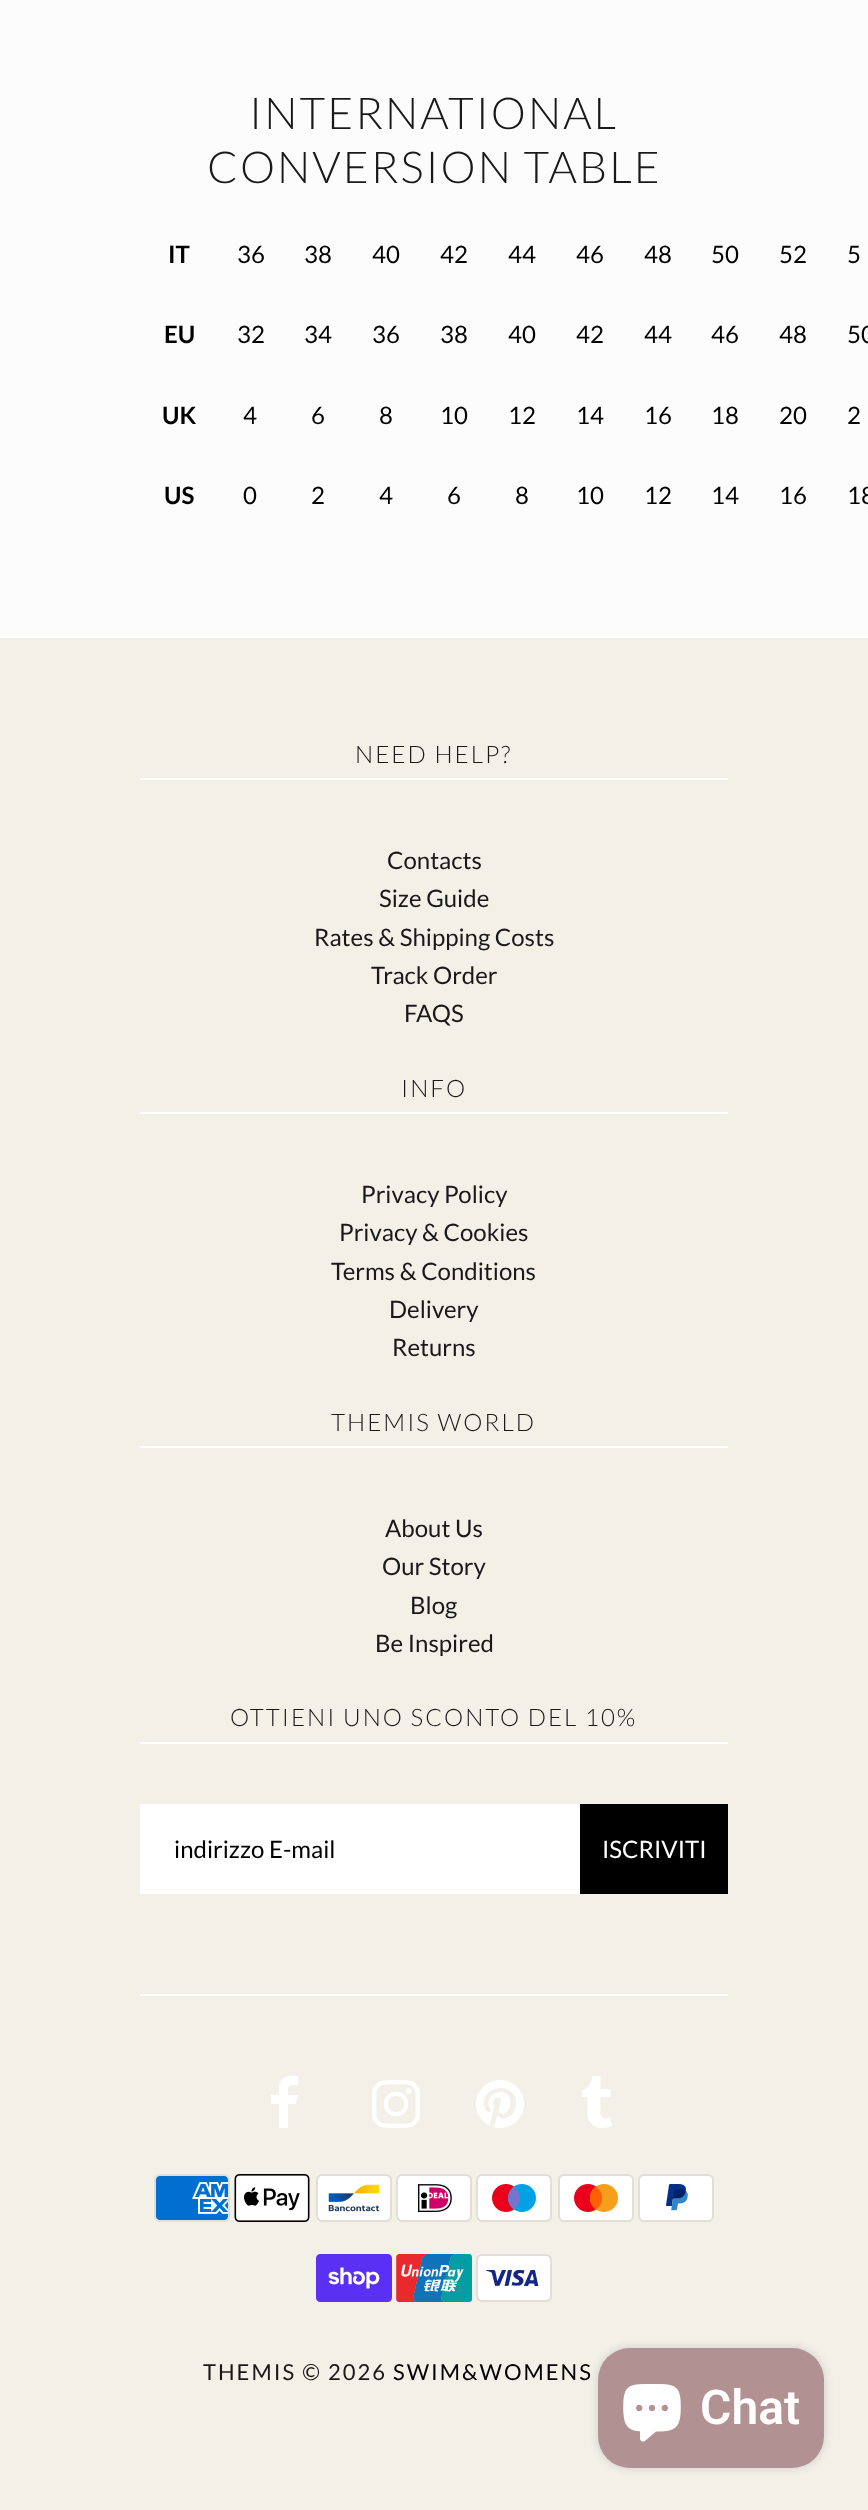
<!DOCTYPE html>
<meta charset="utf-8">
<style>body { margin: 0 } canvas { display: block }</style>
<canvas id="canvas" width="868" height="2510"></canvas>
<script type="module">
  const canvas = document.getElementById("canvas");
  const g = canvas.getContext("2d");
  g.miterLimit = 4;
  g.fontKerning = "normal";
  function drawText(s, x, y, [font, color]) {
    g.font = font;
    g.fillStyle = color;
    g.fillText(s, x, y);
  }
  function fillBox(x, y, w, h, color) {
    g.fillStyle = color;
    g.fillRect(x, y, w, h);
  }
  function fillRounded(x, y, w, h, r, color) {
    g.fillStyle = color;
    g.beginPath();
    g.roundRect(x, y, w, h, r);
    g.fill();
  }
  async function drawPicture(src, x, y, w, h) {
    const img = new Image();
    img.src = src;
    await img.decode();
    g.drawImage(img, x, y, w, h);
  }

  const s1 = ["300 44px Lato", "#191919"];
  const s2 = ["bold 24px Lato", "#000000"];
  const s3 = ["24px Lato", "#000000"];
  const s4 = ["300 24px Lato", "#191919"];
  const s5 = ["24px Lato", "#191919"];
  const s6 = ["24px Lato", "#FFFDFD"];
  const s7 = ["22px Lato", "#191919"];
  const s8 = ["22px Lato", "#000000"];
  const s9 = ["600 48px Roboto", "#FFFDFD"];

  fillBox(0, 0, 868, 2510, "#FCFCFC");
  g.letterSpacing = "2px";
  drawText("INTERNATIONAL", 249, 129, s1);
  drawText("CONVERSION TABLE", 207, 183, s1);
  g.letterSpacing = "0px";
  drawText("IT", 168, 263, s2);
  drawText("36", 237, 263, s3);
  drawText("38", 304, 263, s3);
  drawText("40", 372, 263, s3);
  drawText("42", 440, 263, s3);
  drawText("44", 508, 263, s3);
  drawText("46", 576, 263, s3);
  drawText("48", 644, 263, s3);
  drawText("50", 711, 263, s3);
  drawText("52", 779, 263, s3);
  drawText("5", 847, 263, s3);
  drawText("EU", 164, 343, s2);
  drawText("32", 237, 343, s3);
  drawText("34", 304, 343, s3);
  drawText("36", 372, 343, s3);
  drawText("38", 440, 343, s3);
  drawText("40", 508, 343, s3);
  drawText("42", 576, 343, s3);
  drawText("44", 644, 343, s3);
  drawText("46", 711, 343, s3);
  drawText("48", 779, 343, s3);
  drawText("50", 847, 343, s3);
  drawText("UK", 162, 424, s2);
  drawText("4", 243, 424, s3);
  drawText("6", 311, 424, s3);
  drawText("8", 379, 424, s3);
  drawText("10", 440, 424, s3);
  drawText("12", 508, 424, s3);
  drawText("14", 576, 424, s3);
  drawText("16", 644, 424, s3);
  drawText("18", 711, 424, s3);
  drawText("20", 779, 424, s3);
  drawText("2", 847, 424, s3);
  drawText("US", 164, 504, s2);
  drawText("0", 243, 504, s3);
  drawText("2", 311, 504, s3);
  drawText("4", 379, 504, s3);
  drawText("6", 447, 504, s3);
  drawText("8", 515, 504, s3);
  drawText("10", 576, 504, s3);
  drawText("12", 644, 504, s3);
  drawText("14", 711, 504, s3);
  drawText("16", 779, 504, s3);
  drawText("18", 847, 504, s3);
  fillBox(0, 638, 868, 1872, "#F3F0E8");
  fillBox(0, 636, 868, 2, "#FFFFFF");
  fillBox(140, 778, 588, 2, "#FFFFFF");
  g.letterSpacing = "2px";
  drawText("NEED HELP?", 355, 763, s4);
  g.letterSpacing = "0px";
  drawText("Contacts", 387, 869, s5);
  drawText("Size Guide", 379, 907, s5);
  drawText("Rates & Shipping Costs", 314, 946, s5);
  drawText("Track Order", 371, 984, s5);
  drawText("FAQS", 404, 1022, s5);
  fillBox(140, 1112, 588, 2, "#FFFFFF");
  g.letterSpacing = "2px";
  drawText("INFO", 401, 1097, s4);
  g.letterSpacing = "0px";
  drawText("Privacy Policy", 361, 1203, s5);
  drawText("Privacy & Cookies", 339, 1241, s5);
  drawText("Terms & Conditions", 331, 1280, s5);
  drawText("Delivery", 389, 1318, s5);
  drawText("Returns", 392, 1356, s5);
  fillBox(140, 1446, 588, 2, "#FFFFFF");
  g.letterSpacing = "2px";
  drawText("THEMIS WORLD", 331, 1431, s4);
  g.letterSpacing = "0px";
  drawText("About Us", 385, 1537, s5);
  drawText("Our Story", 382, 1575, s5);
  drawText("Blog", 410, 1614, s5);
  drawText("Be Inspired", 375, 1652, s5);
  fillBox(140, 1742, 588, 2, "#FFFFFF");
  g.letterSpacing = "2px";
  drawText("OTTIENI UNO SCONTO DEL 10%", 230, 1726, s4);
  fillBox(140, 1804, 440, 90, "#FFFFFF");
  g.letterSpacing = "0px";
  drawText("indirizzo E-mail", 174, 1858, s3);
  fillBox(580, 1804, 148, 90, "#000000");
  drawText("ISCRIVITI", 602, 1858, s6);
  fillBox(140, 1994, 588, 2, "#FFFFFF");
  g.beginPath();
  g.moveTo(298, 2076);
  g.lineTo(298, 2085);
  g.bezierCurveTo(288, 2085, 288, 2085, 288, 2095);
  g.lineTo(298, 2095);
  g.lineTo(296, 2104);
  g.lineTo(288, 2104);
  g.lineTo(288, 2128);
  g.lineTo(279, 2128);
  g.lineTo(279, 2104);
  g.lineTo(271, 2104);
  g.lineTo(271, 2095);
  g.lineTo(279, 2095);
  g.lineTo(279, 2085);
  g.bezierCurveTo(281, 2076, 290, 2075, 298, 2076);
  g.closePath();
  g.fill();
  await drawPicture("pic1.png", 372, 2080, 48, 48);
  await drawPicture("pic2.png", 476, 2080, 48, 48);
  await drawPicture("pic3.png", 582, 2076, 30, 52);
  await drawPicture("pic4.png", 154, 2174, 76, 48);
  await drawPicture("pic5.png", 234, 2174, 76, 48);
  await drawPicture("pic6.png", 316, 2174, 76, 48);
  await drawPicture("pic7.png", 396, 2174, 76, 48);
  await drawPicture("pic8.png", 476, 2174, 76, 48);
  await drawPicture("pic9.png", 558, 2174, 76, 48);
  await drawPicture("pic10.png", 638, 2174, 76, 48);
  await drawPicture("pic11.png", 316, 2254, 76, 48);
  await drawPicture("pic12.png", 396, 2254, 76, 48);
  await drawPicture("pic13.png", 476, 2254, 76, 48);
  g.letterSpacing = "2px";
  drawText("THEMIS © 2026", 203, 2380, s7);
  drawText("SWIM&WOMENS", 393, 2380, s8);
  g.fillStyle = "rgba(0, 0, 0, 0.15)";
  g.filter = "blur(5px)";
  g.beginPath();
  g.roundRect(598, 2348, 226, 120, 32);
  g.fill();
  g.filter = "none";
  fillRounded(598, 2348, 226, 120, 32, "#B19191");
  await drawPicture("pic14.png", 623, 2384, 58, 58);
  g.letterSpacing = "0px";
  drawText("Chat", 700, 2424, s9);
</script>
